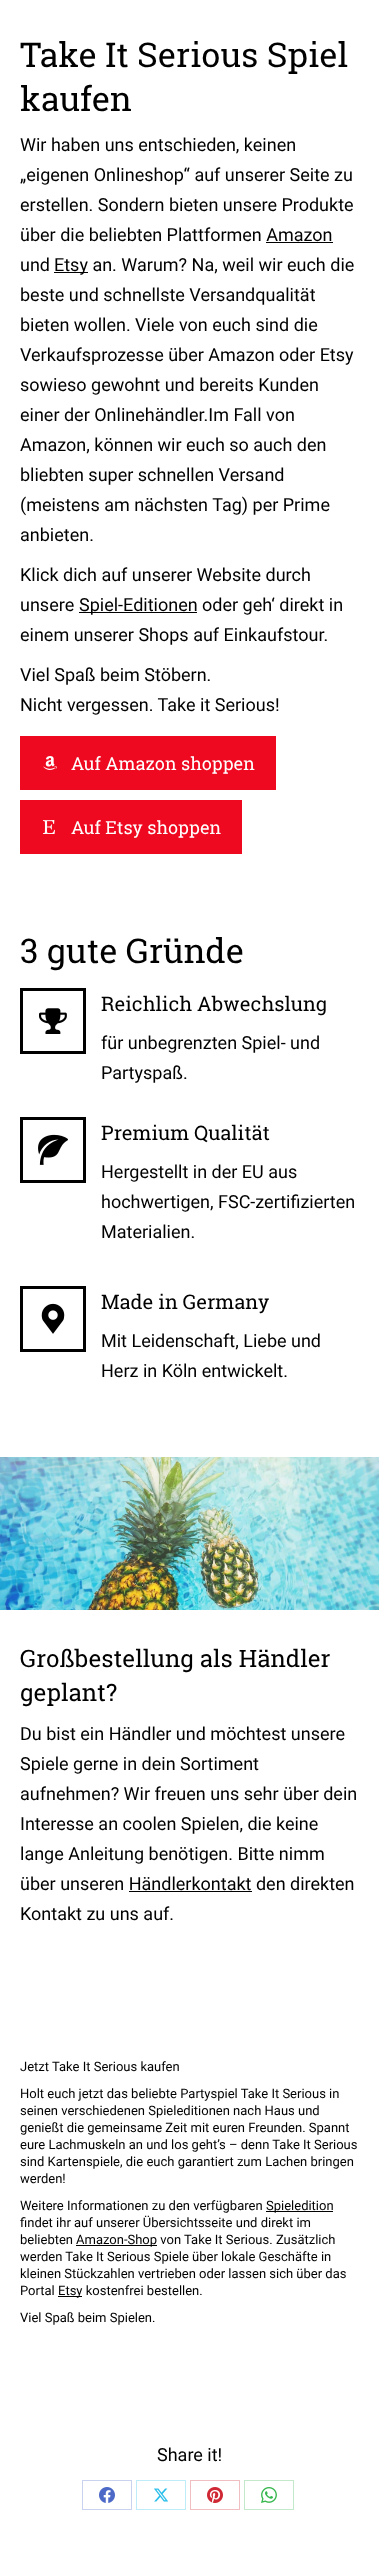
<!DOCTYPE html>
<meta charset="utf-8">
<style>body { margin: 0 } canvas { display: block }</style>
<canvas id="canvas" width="379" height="2562"></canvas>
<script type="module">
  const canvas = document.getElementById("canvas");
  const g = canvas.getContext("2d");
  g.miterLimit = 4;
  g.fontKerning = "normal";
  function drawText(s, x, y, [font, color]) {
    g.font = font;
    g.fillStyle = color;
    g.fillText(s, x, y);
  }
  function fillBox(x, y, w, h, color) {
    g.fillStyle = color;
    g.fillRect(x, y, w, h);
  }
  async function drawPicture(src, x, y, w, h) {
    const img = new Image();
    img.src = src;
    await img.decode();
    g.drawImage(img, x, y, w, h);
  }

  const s1 = ["34px Roboto Slab", "#000000"];
  const s2 = ["18px Roboto", "#000000"];
  const s3 = ["18px Roboto Slab", "#FFFFFF"];
  const s4 = ["20px Roboto Slab", "#000000"];
  const s5 = ["24px Roboto Slab", "#000000"];
  const s6 = ["13px Roboto", "#000000"];

  fillBox(0, 0, 379, 2562, "#FFFFFF");
  drawText("Take It Serious Spiel", 20, 67, s1);
  drawText("kaufen", 20, 111, s1);
  drawText("Wir haben uns entschieden, keinen", 20, 151, s2);
  drawText("„eigenen Onlineshop“ auf unserer Seite zu", 20, 181, s2);
  drawText("erstellen. Sondern bieten unsere Produkte", 20, 211, s2);
  drawText("über die beliebten Plattformen Amazon", 20, 241, s2);
  fillBox(266, 242, 67, 1, "#000000");
  drawText("und", 20, 271, s2);
  fillBox(54, 272, 34, 1, "#000000");
  drawText("Etsy an. Warum? Na, weil wir euch die", 54, 271, s2);
  drawText("beste und schnellste Versandqualität", 20, 301, s2);
  drawText("bieten wollen. Viele von euch sind die", 20, 331, s2);
  drawText("Verkaufsprozesse über Amazon oder Etsy", 20, 361, s2);
  drawText("sowieso gewohnt und bereits Kunden", 20, 391, s2);
  drawText("einer der Onlinehändler.Im Fall von", 20, 421, s2);
  drawText("Amazon, können wir euch so auch den", 20, 451, s2);
  drawText("bliebten super schnellen Versand", 20, 481, s2);
  drawText("(meistens am nächsten Tag) per Prime", 20, 511, s2);
  drawText("anbieten.", 20, 541, s2);
  drawText("Klick dich auf unserer Website durch", 20, 581, s2);
  drawText("unsere", 20, 611, s2);
  fillBox(79, 612, 118, 1, "#000000");
  drawText("Spiel-Editionen oder geh‘ direkt in", 79, 611, s2);
  drawText("einem unserer Shops auf Einkaufstour.", 20, 641, s2);
  drawText("Viel Spaß beim Stöbern.", 20, 681, s2);
  drawText("Nicht vergessen. Take it Serious!", 20, 711, s2);
  fillBox(20, 736, 256, 54, "#EF0920");
  await drawPicture("pic1.png", 43, 756, 14, 14);
  drawText("Auf Amazon shoppen", 71, 770, s3);
  fillBox(20, 800, 222, 54, "#EF0920");
  await drawPicture("pic2.png", 43, 820, 12, 14);
  drawText("Auf Etsy shoppen", 71, 834, s3);
  drawText("3 gute Gründe", 20, 963, s1);
  g.strokeStyle = "#000000";
  g.lineWidth = 3;
  g.strokeRect(21.5, 989.5, 63, 63);
  await drawPicture("pic3.png", 39, 1008, 28, 26);
  drawText("Reichlich Abwechslung", 101, 1011, s4);
  drawText("für unbegrenzten Spiel- und", 101, 1049, s2);
  drawText("Partyspaß.", 101, 1079, s2);
  g.strokeRect(21.5, 1118.5, 63, 63);
  await drawPicture("pic4.png", 38, 1134, 30, 31);
  drawText("Premium Qualität", 101, 1140, s4);
  drawText("Hergestellt in der EU aus", 101, 1178, s2);
  drawText("hochwertigen, FSC-zertifizierten", 101, 1208, s2);
  drawText("Materialien.", 101, 1238, s2);
  g.strokeRect(21.5, 1287.5, 63, 63);
  await drawPicture("pic5.png", 41, 1303, 24, 31);
  drawText("Made in Germany", 101, 1309, s4);
  drawText("Mit Leidenschaft, Liebe und", 101, 1347, s2);
  drawText("Herz in Köln entwickelt.", 101, 1377, s2);
  await drawPicture("pic6.png", 0, 1457, 379, 153);
  drawText("Großbestellung als Händler", 20, 1667, s5);
  drawText("geplant?", 20, 1701, s5);
  drawText("Du bist ein Händler und möchtest unsere", 20, 1740, s2);
  drawText("Spiele gerne in dein Sortiment", 20, 1770, s2);
  drawText("aufnehmen? Wir freuen uns sehr über dein", 20, 1800, s2);
  drawText("Interesse an coolen Spielen, die keine", 20, 1830, s2);
  drawText("lange Anleitung benötigen. Bitte nimm", 20, 1860, s2);
  drawText("über unseren Händlerkontakt den direkten", 20, 1890, s2);
  fillBox(129, 1891, 123, 1, "#000000");
  drawText("Kontakt zu uns auf.", 20, 1920, s2);
  drawText("Jetzt Take It Serious kaufen", 20, 2071, s6);
  drawText("Holt euch jetzt das beliebte Partyspiel Take It Serious in", 20, 2098, s6);
  drawText("seinen verschiedenen Spieleditionen nach Haus und", 20, 2115, s6);
  drawText("genießt die gemeinsame Zeit mit euren Freunden. Spannt", 20, 2132, s6);
  drawText("eure Lachmuskeln an und los geht’s – denn Take It Serious", 20, 2149, s6);
  drawText("sind Kartenspiele, die euch garantiert zum Lachen bringen", 20, 2166, s6);
  drawText("werden!", 20, 2183, s6);
  drawText("Weitere Informationen zu den verfügbaren", 20, 2210, s6);
  fillBox(266, 2211, 67, 1, "#000000");
  drawText("Spieledition", 266, 2210, s6);
  drawText("findet ihr auf unserer Übersichtsseite und direkt im", 20, 2227, s6);
  drawText("beliebten", 20, 2244, s6);
  fillBox(76, 2245, 81, 1, "#000000");
  drawText("Amazon-Shop von Take It Serious. Zusätzlich", 76, 2244, s6);
  drawText("werden Take It Serious Spiele über lokale Geschäfte in", 20, 2261, s6);
  drawText("kleinen Stückzahlen vertrieben oder lassen sich über das", 20, 2278, s6);
  drawText("Portal", 20, 2295, s6);
  fillBox(58, 2296, 24, 1, "#000000");
  drawText("Etsy kostenfrei bestellen.", 58, 2295, s6);
  drawText("Viel Spaß beim Spielen.", 20, 2322, s6);
  drawText("Share it!", 157, 2461, s2);
  g.strokeStyle = "#C9D2EE";
  g.lineWidth = 1;
  g.strokeRect(82.5, 2480.5, 49, 29);
  await drawPicture("pic7.png", 99, 2487, 16, 16);
  g.strokeStyle = "#BFECF9";
  g.strokeRect(136.5, 2480.5, 49, 29);
  await drawPicture("pic8.png", 154, 2488, 15, 14);
  g.strokeStyle = "#F1BFC2";
  g.strokeRect(190.5, 2480.5, 49, 29);
  await drawPicture("pic9.png", 207, 2487, 16, 16);
  g.strokeStyle = "#C3E9CA";
  g.strokeRect(244.5, 2480.5, 49, 29);
  await drawPicture("pic10.png", 261, 2487, 16, 16);
</script>
